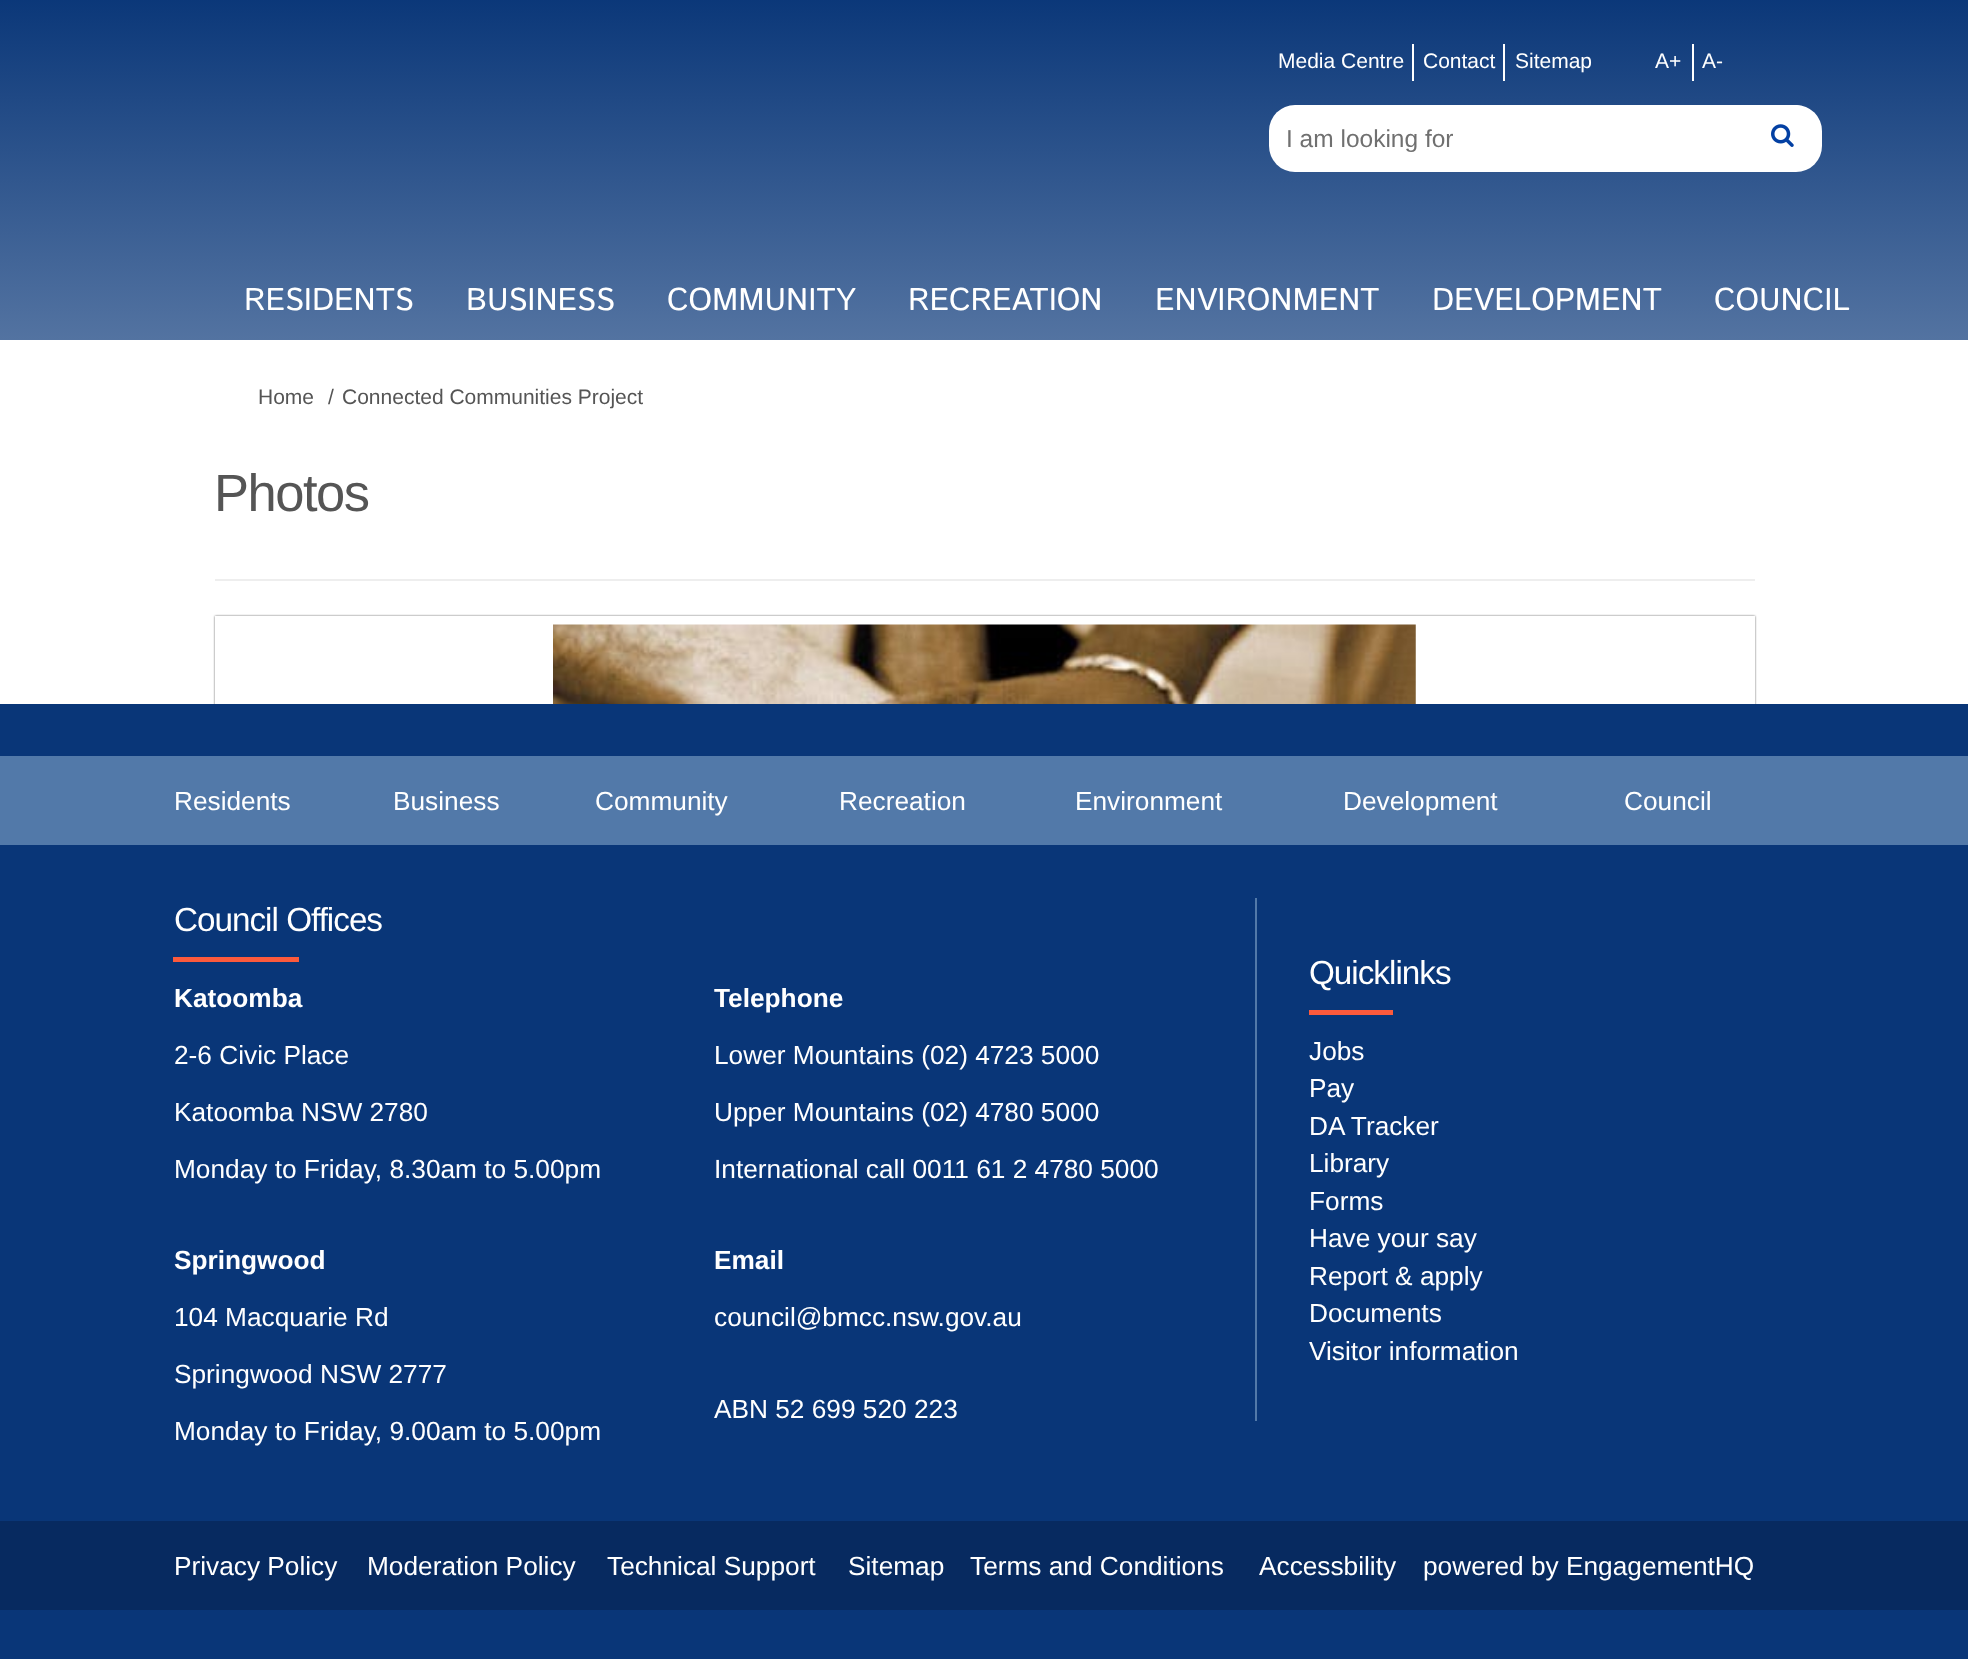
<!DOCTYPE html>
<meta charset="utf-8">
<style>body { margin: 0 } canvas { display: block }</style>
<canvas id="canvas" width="1968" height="1659"></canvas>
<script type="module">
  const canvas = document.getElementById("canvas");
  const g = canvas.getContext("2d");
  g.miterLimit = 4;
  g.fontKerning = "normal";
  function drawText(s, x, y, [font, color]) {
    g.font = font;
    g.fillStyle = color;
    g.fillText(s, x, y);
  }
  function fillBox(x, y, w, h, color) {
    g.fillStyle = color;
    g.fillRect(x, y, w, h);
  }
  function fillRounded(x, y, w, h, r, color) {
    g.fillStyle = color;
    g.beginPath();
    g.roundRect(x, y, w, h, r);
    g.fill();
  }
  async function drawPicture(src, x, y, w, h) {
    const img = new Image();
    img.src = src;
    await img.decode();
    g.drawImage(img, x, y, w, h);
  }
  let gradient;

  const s1 = ["21px Liberation Sans", "#FFFFFF"];
  const s2 = ["24.5px Liberation Sans", "#707070"];
  const s3 = ["31.5px Istok Web", "#FFFFFF"];
  const s4 = ["21px Liberation Sans", "#555555"];
  const s5 = ["52.5px Liberation Sans", "#555555"];
  const s6 = ["26.25px Liberation Sans", "#FFFFFF"];
  const s7 = ["33.25px Liberation Sans", "#FFFFFF"];
  const s8 = ["bold 26.25px Liberation Sans", "#FFFFFF"];

  fillBox(0, 0, 1968, 1659, "#FFFFFF");
  gradient = g.createLinearGradient(984, -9, 984, 340);
  gradient.addColorStop(0, "#093678");
  gradient.addColorStop(1, "#5373A1");
  g.fillStyle = gradient;
  g.fillRect(0, 0, 1968, 340);
  drawText("Media Centre", 1278, 68, s1);
  fillBox(1412, 44, 2, 37, "#FFFFFF");
  drawText("Contact", 1423, 68, s1);
  fillBox(1503, 44, 2, 37, "#FFFFFF");
  drawText("Sitemap", 1515, 68, s1);
  drawText("A+", 1655, 68, s1);
  fillBox(1692, 44, 2, 37, "#FFFFFF");
  drawText("A-", 1702, 68, s1);
  fillRounded(1269, 105, 553, 67, 26, "#FFFFFF");
  drawText("I am looking for", 1286, 147, s2);
  g.save();
  g.beginPath();
  g.roundRect(1269, 105, 553, 67, 26);
  g.clip();
  fillRounded(1761, 105, 43, 60, 7, "#FFFFFF");
  g.restore();
  await drawPicture("pic1.png", 1771, 124, 23, 23);
  drawText("RESIDENTS", 244, 310, s3);
  drawText("BUSINESS", 466, 310, s3);
  drawText("COMMUNITY", 667, 310, s3);
  drawText("RECREATION", 908, 310, s3);
  drawText("ENVIRONMENT", 1155, 310, s3);
  drawText("DEVELOPMENT", 1432, 310, s3);
  drawText("COUNCIL", 1714, 310, s3);
  drawText("Home", 258, 404, s4);
  drawText("/", 328, 404, s4);
  drawText("Connected Communities Project", 342, 404, s4);
  fillBox(215, 579, 1540, 2, "#EEEEEE");
  g.letterSpacing = "-1.5px";
  drawText("Photos", 214, 511, s5);
  g.save();
  g.beginPath();
  g.moveTo(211, 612);
  g.lineTo(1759, 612);
  g.lineTo(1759, 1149);
  g.lineTo(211, 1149);
  g.closePath();
  g.moveTo(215, 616);
  g.lineTo(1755, 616);
  g.lineTo(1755, 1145);
  g.lineTo(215, 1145);
  g.closePath();
  g.clip("evenodd");
  g.fillStyle = "#666666";
  g.filter = "blur(1px)";
  g.beginPath();
  g.rect(215, 616, 1540, 529);
  g.fill();
  g.filter = "none";
  g.restore();
  g.strokeStyle = "#FFFFFF";
  g.lineWidth = 9;
  g.strokeRect(219.5, 620.5, 1531, 520);
  await drawPicture("pic2.png", 553, 624, 863, 80);
  fillBox(0, 704, 1968, 955, "#093678");
  fillBox(0, 756, 1968, 89, "#5279A9");
  g.letterSpacing = "0px";
  drawText("Residents", 174, 810, s6);
  drawText("Business", 393, 810, s6);
  drawText("Community", 595, 810, s6);
  drawText("Recreation", 839, 810, s6);
  drawText("Environment", 1075, 810, s6);
  drawText("Development", 1343, 810, s6);
  drawText("Council", 1624, 810, s6);
  g.letterSpacing = "-1px";
  drawText("Council Offices", 174, 931, s7);
  fillBox(173, 957, 126, 5, "#FC5A3C");
  g.letterSpacing = "0px";
  drawText("Katoomba", 174, 1007, s8);
  drawText("2-6 Civic Place", 174, 1064, s6);
  drawText("Katoomba NSW 2780", 174, 1121, s6);
  drawText("Monday to Friday, 8.30am to 5.00pm", 174, 1178, s6);
  drawText("Springwood", 174, 1269, s8);
  drawText("104 Macquarie Rd", 174, 1326, s6);
  drawText("Springwood NSW 2777", 174, 1383, s6);
  drawText("Monday to Friday, 9.00am to 5.00pm", 174, 1440, s6);
  drawText("Telephone", 714, 1007, s8);
  drawText("Lower Mountains (02) 4723 5000", 714, 1064, s6);
  drawText("Upper Mountains (02) 4780 5000", 714, 1121, s6);
  drawText("International call 0011 61 2 4780 5000", 714, 1178, s6);
  drawText("Email", 714, 1269, s8);
  drawText("council@bmcc.nsw.gov.au", 714, 1326, s6);
  drawText("ABN 52 699 520 223", 714, 1418, s6);
  fillBox(1255, 898, 2, 523, "#5279A9");
  g.letterSpacing = "-1px";
  drawText("Quicklinks", 1309, 984, s7);
  fillBox(1309, 1010, 84, 5, "#FC5A3C");
  g.letterSpacing = "0px";
  drawText("Jobs", 1309, 1060, s6);
  drawText("Pay", 1309, 1097, s6);
  drawText("DA Tracker", 1309, 1135, s6);
  drawText("Library", 1309, 1172, s6);
  drawText("Forms", 1309, 1210, s6);
  drawText("Have your say", 1309, 1247, s6);
  drawText("Report & apply", 1309, 1285, s6);
  drawText("Documents", 1309, 1322, s6);
  drawText("Visitor information", 1309, 1360, s6);
  fillBox(0, 1521, 1968, 89, "#072A60");
  drawText("Privacy Policy", 174, 1575, s6);
  drawText("Moderation Policy", 367, 1575, s6);
  drawText("Technical Support", 607, 1575, s6);
  drawText("Sitemap", 848, 1575, s6);
  drawText("Terms and Conditions", 970, 1575, s6);
  drawText("Accessbility", 1259, 1575, s6);
  drawText("powered by EngagementHQ", 1423, 1575, s6);
</script>
